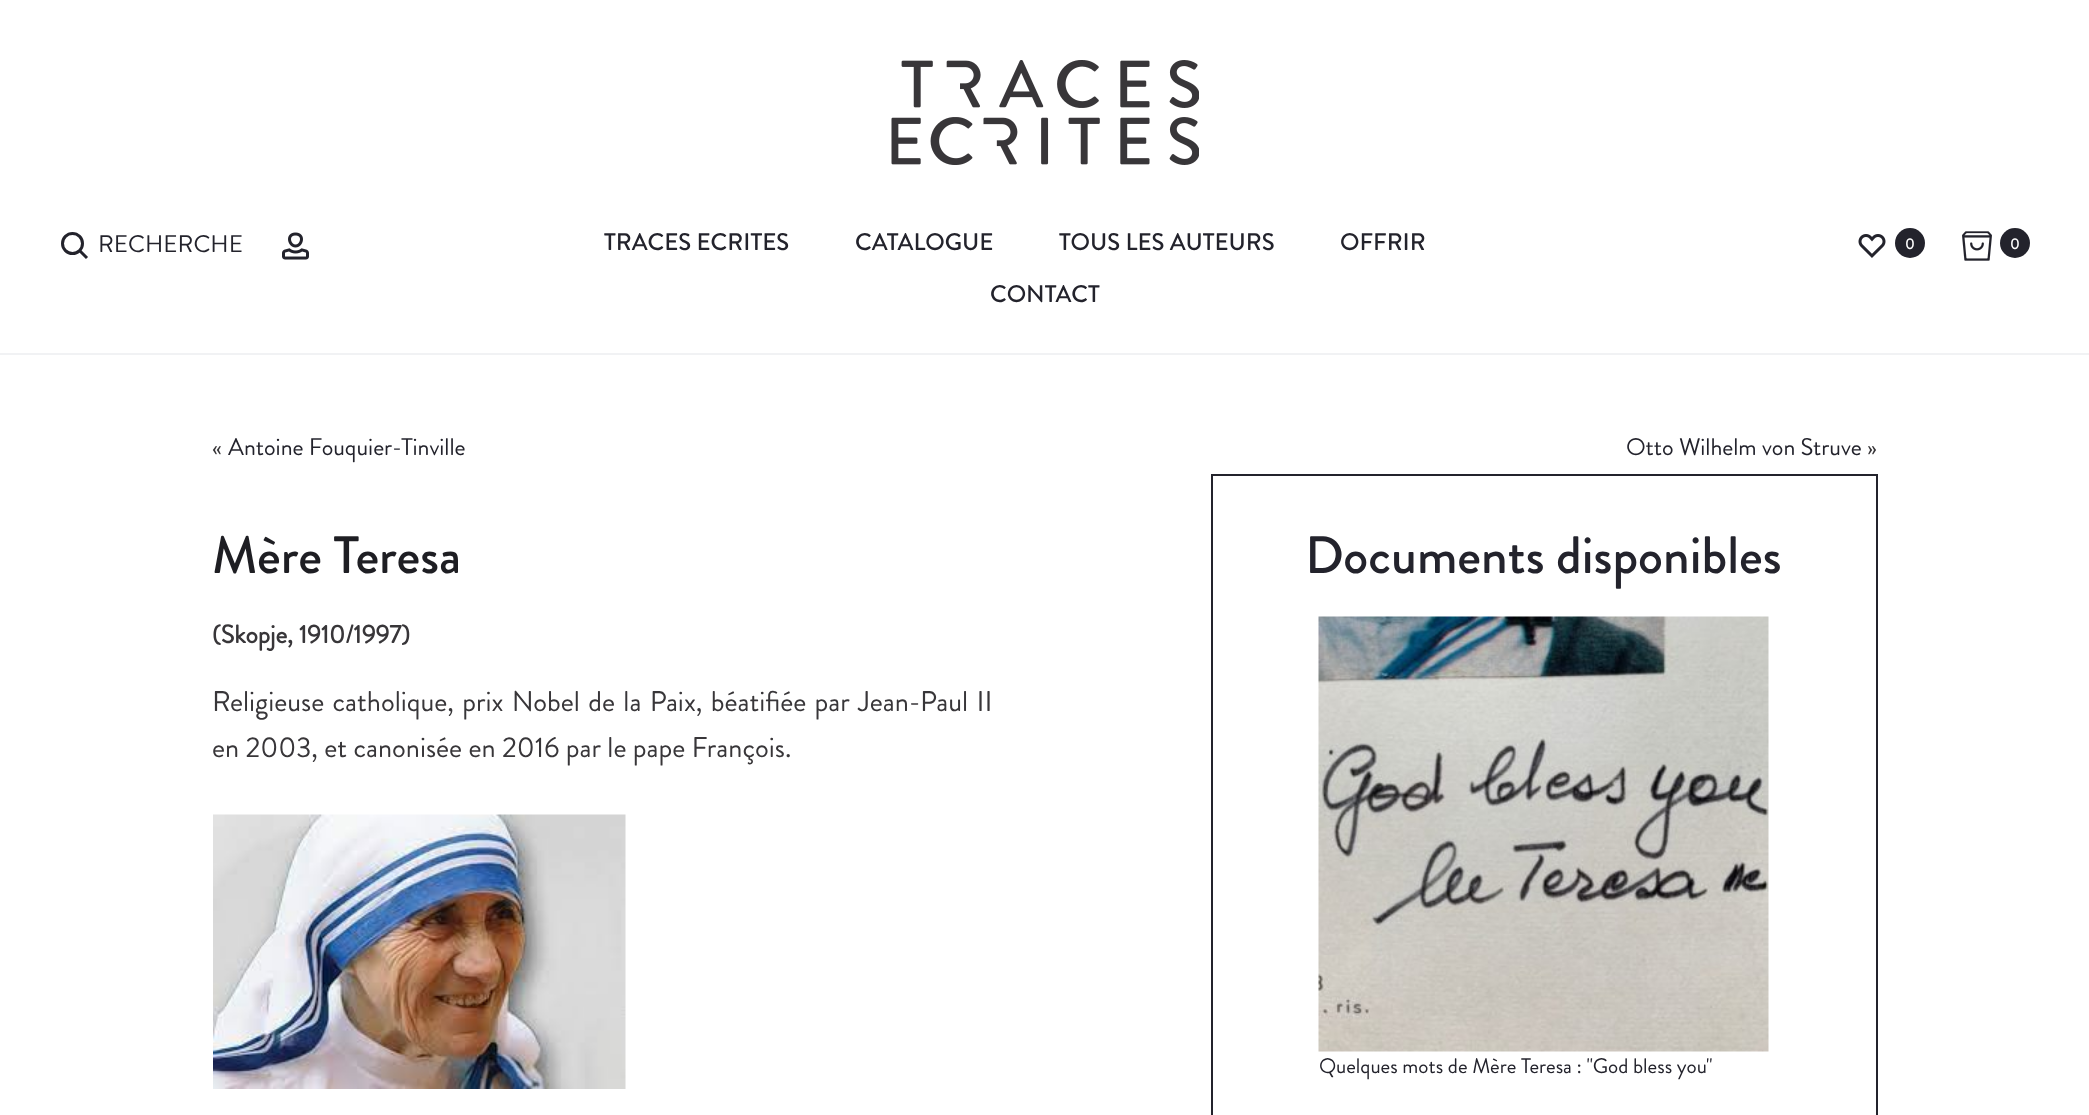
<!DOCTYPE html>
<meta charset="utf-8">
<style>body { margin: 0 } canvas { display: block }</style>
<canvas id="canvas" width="2089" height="1115"></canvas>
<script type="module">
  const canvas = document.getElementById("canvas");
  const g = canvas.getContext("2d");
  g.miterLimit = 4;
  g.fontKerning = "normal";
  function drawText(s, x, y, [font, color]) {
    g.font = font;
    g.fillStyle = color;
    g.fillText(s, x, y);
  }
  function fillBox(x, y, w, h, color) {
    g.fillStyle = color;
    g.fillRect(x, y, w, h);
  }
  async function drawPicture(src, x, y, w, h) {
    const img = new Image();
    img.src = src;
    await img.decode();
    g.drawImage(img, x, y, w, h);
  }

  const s1 = ["24px Brandon Grotesque", "#23232C"];
  const s2 = ["500 24px Brandon Grotesque", "#23232C"];
  const s3 = ["bold 15px Brandon Grotesque", "#FFFFFF"];
  const s4 = ["24px Brandon Grotesque", "#383639"];
  const s5 = ["500 52.5px Brandon Grotesque", "#1E1E23"];
  const s6 = ["bold 25.5px Brandon Grotesque", "#383639"];
  const s7 = ["28.5px Brandon Grotesque", "#383639"];
  const s8 = ["500 52.5px Brandon Grotesque", "#23232C"];
  const s9 = ["21px Brandon Grotesque", "#23232C"];

  fillBox(0, 0, 2089, 1115, "#FFFFFF");
  fillBox(0, 353, 2089, 2, "#F1F2F4");
  await drawPicture("pic1.png", 891, 60, 308, 105);
  g.beginPath();
  g.arc(72.5, 243.5, 10, 0, Math.PI * 2);
  g.strokeStyle = "#23232C";
  g.lineWidth = 3;
  g.stroke();
  g.beginPath();
  g.moveTo(79.5, 250.5);
  g.lineTo(87, 258);
  g.stroke();
  drawText("RECHERCHE", 98, 252, s1);
  await drawPicture("pic2.png", 282, 232, 27, 28);
  drawText("TRACES ECRITES", 604, 250, s2);
  drawText("CATALOGUE", 855, 250, s2);
  drawText("TOUS LES AUTEURS", 1059, 250, s2);
  drawText("OFFRIR", 1340, 250, s2);
  drawText("CONTACT", 990, 302, s2);
  await drawPicture("pic3.png", 1858, 234, 28, 24);
  g.beginPath();
  g.arc(1910, 243, 15, 0, Math.PI * 2);
  g.fill();
  drawText("0", 1905, 249, s3);
  await drawPicture("pic4.png", 1962, 231, 30, 30);
  g.fillStyle = "#23232C";
  g.beginPath();
  g.arc(2015, 243, 15, 0, Math.PI * 2);
  g.fill();
  drawText("0", 2010, 249, s3);
  drawText("«", 212, 455, s4);
  drawText("Antoine Fouquier-Tinville", 228, 455, s1);
  drawText("Otto Wilhelm von Struve", 1626, 455, s1);
  drawText("»", 1867, 455, s4);
  drawText("Mère Teresa", 212, 573, s5);
  drawText("(Skopje, 1910/1997)", 212, 643, s6);
  g.wordSpacing = "2px";
  drawText("Religieuse catholique, prix Nobel de la Paix, béatifiée par Jean-Paul II", 212, 711, s7);
  g.wordSpacing = "0px";
  drawText("en 2003, et canonisée en 2016 par le pape François.", 212, 757, s7);
  await drawPicture("pic5.png", 213, 814, 413, 275);
  g.lineWidth = 2;
  g.strokeRect(1212, 475, 665, 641);
  drawText("Documents disponibles", 1305, 573, s8);
  await drawPicture("pic6.png", 1318, 616, 451, 436);
  drawText("Quelques mots de Mère Teresa : \"God bless you\"", 1319, 1073, s9);
</script>
